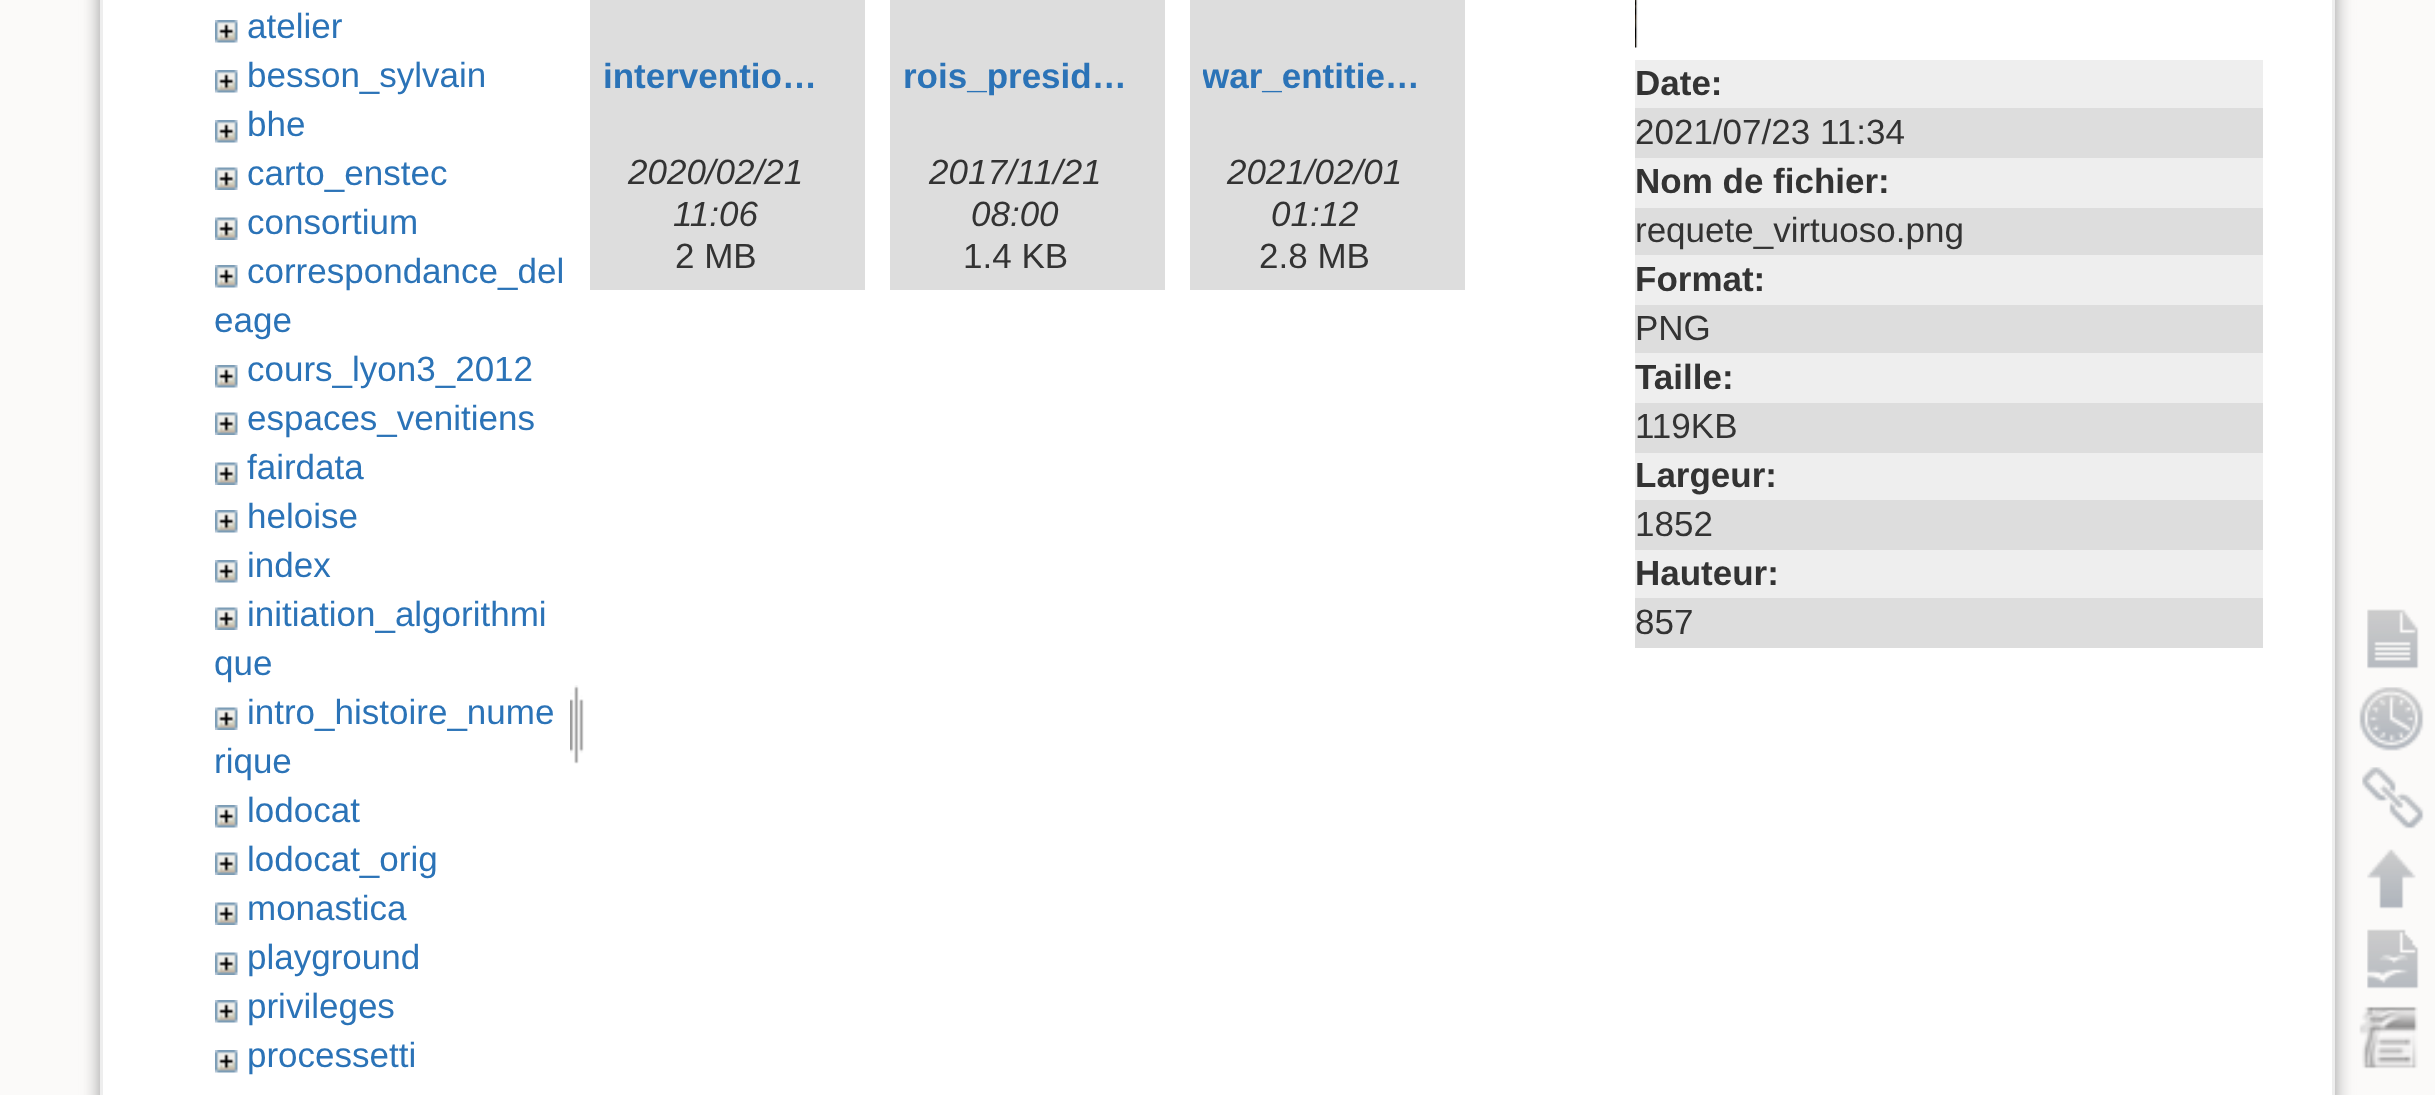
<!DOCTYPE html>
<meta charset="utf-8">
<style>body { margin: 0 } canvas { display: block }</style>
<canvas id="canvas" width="2435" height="1095"></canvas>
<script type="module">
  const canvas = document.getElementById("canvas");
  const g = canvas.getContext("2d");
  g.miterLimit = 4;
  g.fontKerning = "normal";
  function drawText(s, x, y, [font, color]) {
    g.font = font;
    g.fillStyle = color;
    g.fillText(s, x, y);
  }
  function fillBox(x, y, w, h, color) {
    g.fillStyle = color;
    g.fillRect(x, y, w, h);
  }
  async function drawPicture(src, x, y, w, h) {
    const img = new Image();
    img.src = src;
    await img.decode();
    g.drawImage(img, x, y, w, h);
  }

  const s1 = ["35px Liberation Sans", "#2B73B7"];
  const s2 = ["bold 35px Liberation Sans", "#2B73B7"];
  const s3 = ["italic 35px Liberation Sans", "#333333"];
  const s4 = ["35px Liberation Sans", "#333333"];
  const s5 = ["bold 35px Liberation Sans", "#333333"];

  fillBox(0, 0, 2435, 1095, "#FBFAF9");
  g.fillStyle = "#999999";
  g.filter = "blur(9px)";
  g.beginPath();
  g.roundRect(100, -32, 2235, 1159, 5);
  g.fill();
  g.filter = "none";
  g.fillStyle = "#FFFFFF";
  g.beginPath();
  g.rect(101.5, -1.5, 2232, 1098);
  g.fill();
  g.strokeStyle = "#EEEEEE";
  g.lineWidth = 3;
  g.stroke();
  await drawPicture("pic1.png", 215, 20, 23, 23);
  drawText("atelier", 247, 38, s1);
  await drawPicture("pic2.png", 215, 70, 23, 23);
  drawText("besson_sylvain", 247, 87, s1);
  await drawPicture("pic2.png", 215, 120, 23, 23);
  drawText("bhe", 247, 136, s1);
  await drawPicture("pic3.png", 215, 167, 23, 23);
  drawText("carto_enstec", 247, 185, s1);
  await drawPicture("pic3.png", 215, 217, 23, 23);
  drawText("consortium", 247, 234, s1);
  await drawPicture("pic2.png", 215, 265, 23, 23);
  drawText("correspondance_del", 247, 283, s1);
  drawText("eage", 214, 332, s1);
  await drawPicture("pic2.png", 215, 365, 23, 23);
  drawText("cours_lyon3_2012", 247, 381, s1);
  await drawPicture("pic4.png", 215, 412, 23, 23);
  drawText("espaces_venitiens", 247, 430, s1);
  await drawPicture("pic3.png", 215, 462, 23, 23);
  drawText("fairdata", 247, 479, s1);
  await drawPicture("pic2.png", 215, 510, 23, 23);
  drawText("heloise", 247, 528, s1);
  await drawPicture("pic2.png", 215, 560, 23, 23);
  drawText("index", 247, 577, s1);
  await drawPicture("pic3.png", 215, 607, 23, 23);
  drawText("initiation_algorithmi", 247, 626, s1);
  drawText("que", 214, 675, s1);
  await drawPicture("pic4.png", 215, 707, 23, 23);
  drawText("intro_histoire_nume", 247, 724, s1);
  drawText("rique", 214, 773, s1);
  await drawPicture("pic2.png", 215, 805, 23, 23);
  drawText("lodocat", 247, 822, s1);
  await drawPicture("pic3.png", 215, 852, 23, 23);
  drawText("lodocat_orig", 247, 871, s1);
  await drawPicture("pic5.png", 215, 902, 23, 23);
  drawText("monastica", 247, 920, s1);
  await drawPicture("pic3.png", 215, 952, 23, 23);
  drawText("playground", 247, 969, s1);
  await drawPicture("pic2.png", 215, 1000, 23, 23);
  drawText("privileges", 247, 1018, s1);
  await drawPicture("pic2.png", 215, 1050, 23, 23);
  drawText("processetti", 247, 1067, s1);
  await drawPicture("pic6.png", 570, 685, 14, 79);
  fillBox(590, 0, 275, 290, "#DDDDDD");
  drawText("interventio…", 603, 88, s2);
  drawText("2020/02/21", 628, 184, s3);
  drawText("11:06", 673, 226, s3);
  drawText("2 MB", 675, 268, s4);
  fillBox(890, 0, 275, 290, "#DDDDDD");
  drawText("rois_presid…", 903, 88, s2);
  drawText("2017/11/21", 929, 184, s3);
  drawText("08:00", 971, 226, s3);
  drawText("1.4 KB", 963, 268, s4);
  fillBox(1190, 0, 275, 290, "#DDDDDD");
  g.save();
  g.beginPath();
  g.rect(1203, 43, 225, 67);
  g.clip();
  drawText("war_entitie…", 1202, 88, s2);
  g.restore();
  drawText("2021/02/01", 1227, 184, s3);
  drawText("01:12", 1271, 226, s3);
  drawText("2.8 MB", 1259, 268, s4);
  await drawPicture("pic7.png", 1635, 0, 3, 48);
  fillBox(1635, 60, 628, 48, "#EEEEEE");
  drawText("Date:", 1635, 95, s5);
  fillBox(1635, 108, 628, 50, "#DDDDDD");
  drawText("2021/07/23 11:34", 1635, 144, s4);
  fillBox(1635, 158, 628, 50, "#EEEEEE");
  drawText("Nom de fichier:", 1635, 193, s5);
  fillBox(1635, 208, 628, 47, "#DDDDDD");
  drawText("requete_virtuoso.png", 1635, 242, s4);
  fillBox(1635, 255, 628, 50, "#EEEEEE");
  drawText("Format:", 1635, 291, s5);
  fillBox(1635, 305, 628, 48, "#DDDDDD");
  drawText("PNG", 1635, 340, s4);
  fillBox(1635, 353, 628, 50, "#EEEEEE");
  drawText("Taille:", 1635, 389, s5);
  fillBox(1635, 403, 628, 50, "#DDDDDD");
  drawText("119KB", 1635, 438, s4);
  fillBox(1635, 453, 628, 47, "#EEEEEE");
  drawText("Largeur:", 1635, 487, s5);
  fillBox(1635, 500, 628, 50, "#DDDDDD");
  drawText("1852", 1635, 536, s4);
  fillBox(1635, 550, 628, 48, "#EEEEEE");
  drawText("Hauteur:", 1635, 585, s5);
  fillBox(1635, 598, 628, 50, "#DDDDDD");
  drawText("857", 1635, 634, s4);
  await drawPicture("pic8.png", 2367, 609, 52, 60);
  await drawPicture("pic9.png", 2359, 687, 65, 64);
  await drawPicture("pic10.png", 2362, 767, 62, 62);
  await drawPicture("pic11.png", 2367, 849, 49, 60);
  await drawPicture("pic12.png", 2367, 929, 52, 60);
  await drawPicture("pic13.png", 2359, 1006, 59, 63);
</script>
